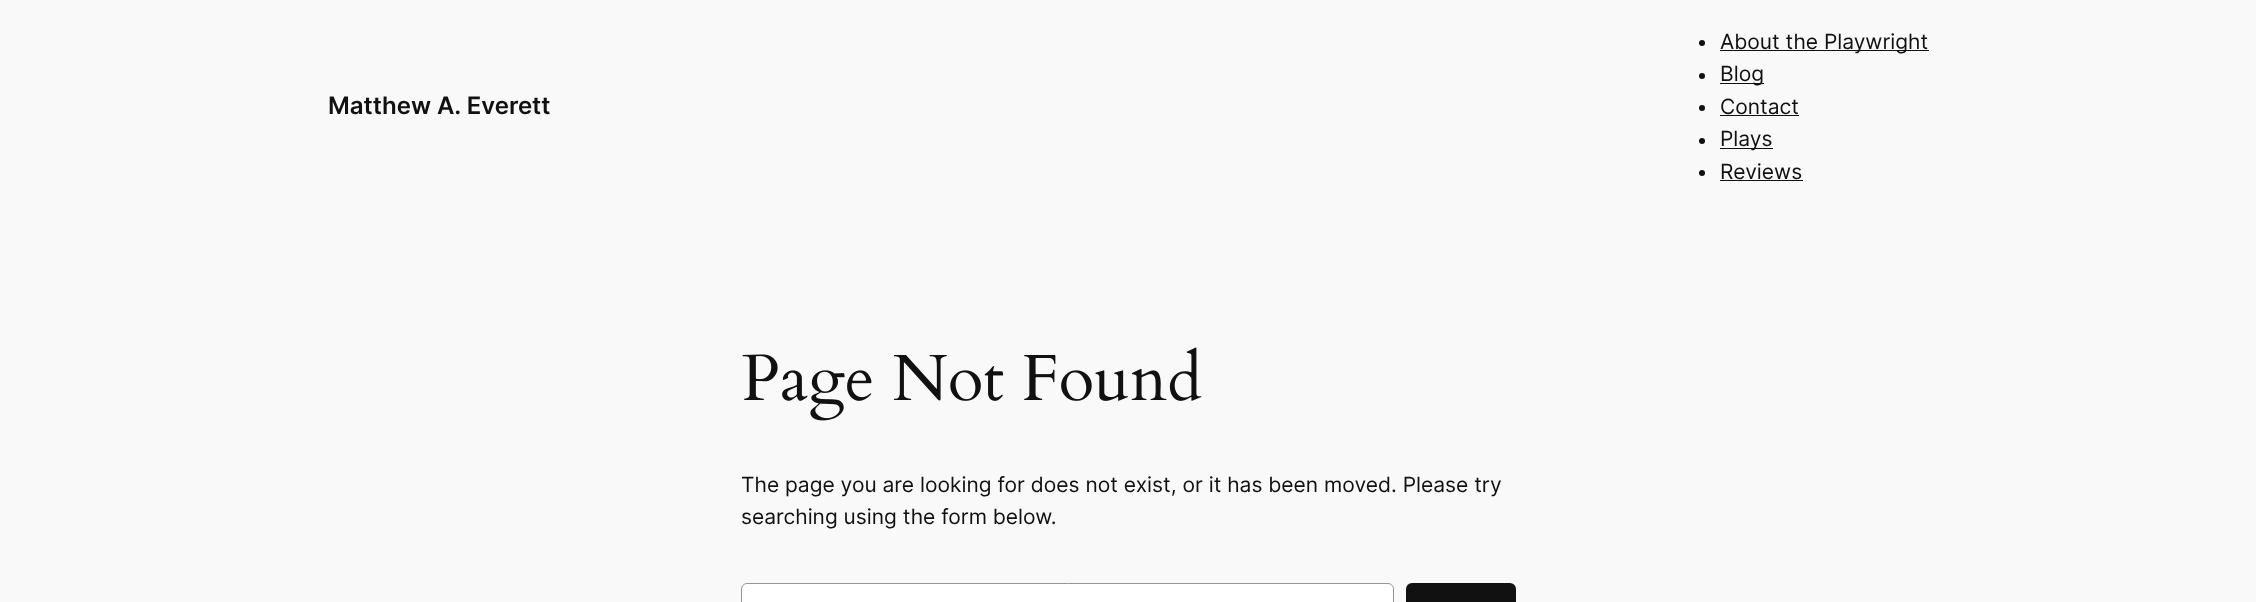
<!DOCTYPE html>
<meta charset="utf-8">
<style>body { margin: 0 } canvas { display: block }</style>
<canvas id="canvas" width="2256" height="602"></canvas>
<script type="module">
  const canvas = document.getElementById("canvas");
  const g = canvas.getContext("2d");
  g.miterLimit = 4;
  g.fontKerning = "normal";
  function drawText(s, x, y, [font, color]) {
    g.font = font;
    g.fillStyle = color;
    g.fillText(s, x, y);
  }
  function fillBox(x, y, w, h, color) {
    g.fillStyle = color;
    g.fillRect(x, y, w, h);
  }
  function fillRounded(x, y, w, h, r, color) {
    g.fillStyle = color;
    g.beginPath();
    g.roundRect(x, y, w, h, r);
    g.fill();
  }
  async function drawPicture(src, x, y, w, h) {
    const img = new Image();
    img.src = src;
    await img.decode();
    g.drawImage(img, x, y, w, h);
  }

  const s1 = ["600 24px Inter", "#111111"];
  const s2 = ["21px Inter", "#111111"];

  fillBox(0, 0, 2256, 602, "#F9F9F9");
  drawText("Matthew A. Everett", 328, 114, s1);
  g.beginPath();
  g.arc(1702, 43, 3, 0, Math.PI * 2);
  g.fill();
  fillBox(1720, 50, 209, 1, "#111111");
  drawText("About the Playwright", 1720, 49, s2);
  g.beginPath();
  g.arc(1702, 76, 3, 0, Math.PI * 2);
  g.fill();
  fillBox(1720, 83, 44, 1, "#111111");
  drawText("Blog", 1720, 81, s2);
  g.beginPath();
  g.arc(1702, 108, 3, 0, Math.PI * 2);
  g.fill();
  drawText("Contact", 1720, 114, s2);
  fillBox(1720, 115, 79, 1, "#111111");
  g.beginPath();
  g.arc(1702, 141, 3, 0, Math.PI * 2);
  g.fill();
  fillBox(1720, 148, 53, 1, "#111111");
  drawText("Plays", 1720, 146, s2);
  g.beginPath();
  g.arc(1702, 173, 3, 0, Math.PI * 2);
  g.fill();
  drawText("Reviews", 1720, 179, s2);
  fillBox(1720, 180, 83, 1, "#111111");
  await drawPicture("pic1.png", 742, 347, 460, 74);
  drawText("The page you are looking for does not exist, or it has been moved. Please try", 741, 492, s2);
  drawText("searching using the form below.", 741, 524, s2);
  g.fillStyle = "#FFFFFF";
  g.beginPath();
  g.roundRect(741.5, 583.5, 652, 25, 5.5);
  g.fill();
  g.strokeStyle = "#949494";
  g.stroke();
  fillRounded(1406, 583, 110, 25, 6, "#111111");
</script>
